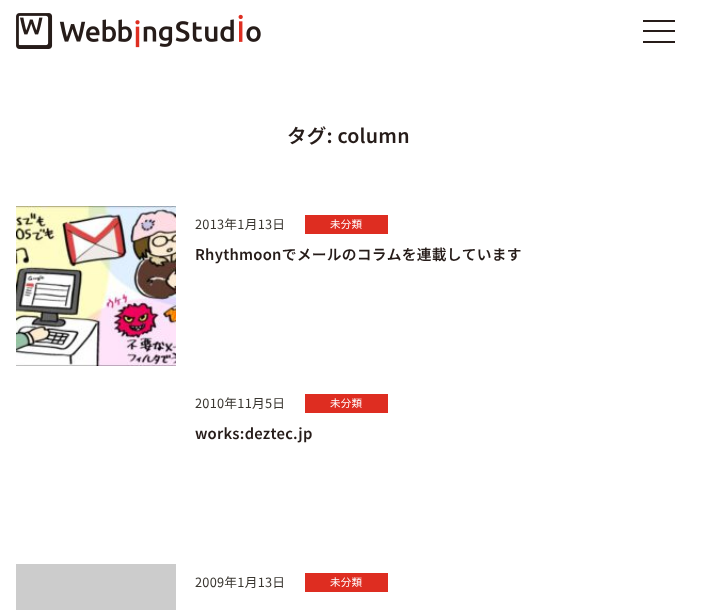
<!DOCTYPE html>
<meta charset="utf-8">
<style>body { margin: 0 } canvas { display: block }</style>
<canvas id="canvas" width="712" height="610"></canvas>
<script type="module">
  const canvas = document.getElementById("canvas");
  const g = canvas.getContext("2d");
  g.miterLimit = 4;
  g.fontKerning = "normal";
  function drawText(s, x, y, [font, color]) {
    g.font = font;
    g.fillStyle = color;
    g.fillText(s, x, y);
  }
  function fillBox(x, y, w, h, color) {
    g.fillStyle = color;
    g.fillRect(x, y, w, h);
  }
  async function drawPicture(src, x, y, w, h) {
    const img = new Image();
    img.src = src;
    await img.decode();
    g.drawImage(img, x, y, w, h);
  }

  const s1 = ["600 19.5px Noto Sans JP", "#261C19"];
  const s2 = ["12.75px Noto Sans JP", "#393630"];
  const s3 = ["10.5px Noto Sans JP", "#FFFFFF"];
  const s4 = ["600 14.75px Noto Sans JP", "#261C19"];

  fillBox(0, 0, 712, 610, "#FFFFFF");
  await drawPicture("pic1.png", 16, 13, 245, 36);
  fillBox(643, 30, 32, 2, "#261C19");
  fillBox(643, 20, 32, 2, "#261C19");
  fillBox(643, 41, 32, 2, "#261C19");
  g.letterSpacing = "0.25px";
  drawText("タグ: column", 287, 143, s1);
  await drawPicture("pic2.png", 16, 206, 160, 160);
  drawText("2013年1月13日", 195, 229, s2);
  fillBox(305, 215, 83, 19, "#DE2D21");
  drawText("未分類", 330, 228, s3);
  drawText("Rhythmoonでメールのコラムを連載しています", 195, 260, s4);
  drawText("2010年11月5日", 195, 408, s2);
  fillBox(305, 394, 83, 19, "#DE2D21");
  drawText("未分類", 330, 407, s3);
  drawText("works:deztec.jp", 195, 439, s4);
  fillBox(16, 564, 160, 46, "#CCCCCC");
  drawText("2009年1月13日", 195, 587, s2);
  fillBox(305, 573, 83, 19, "#DE2D21");
  drawText("未分類", 330, 586, s3);
</script>
